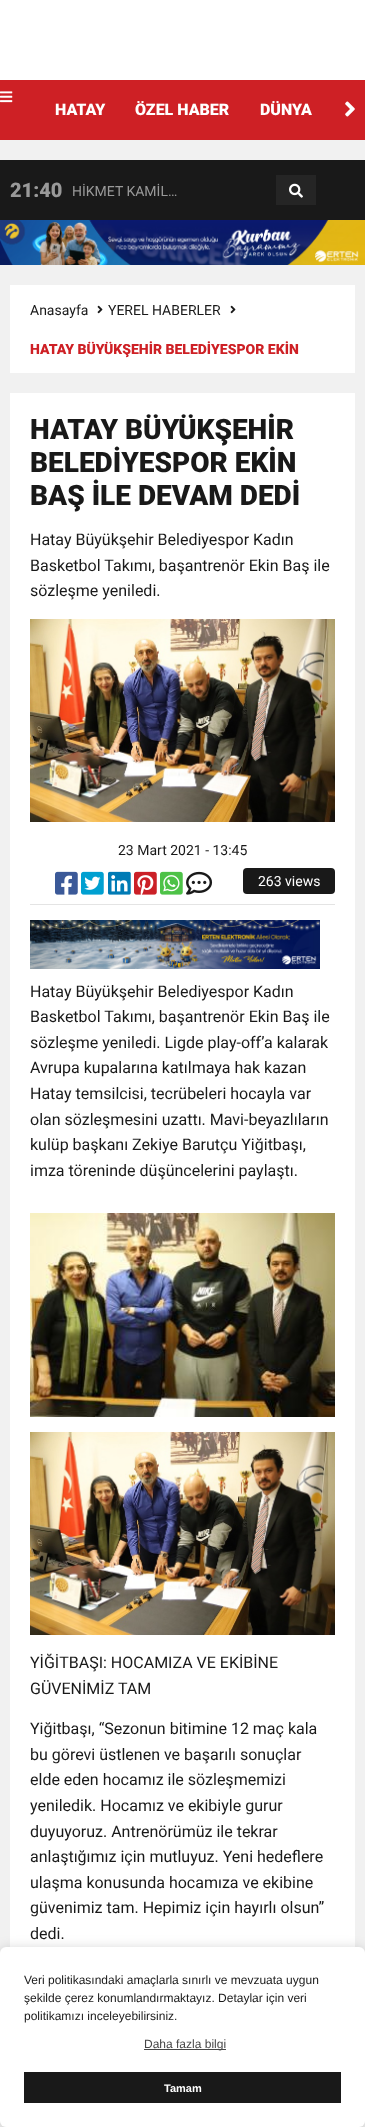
<!DOCTYPE html>
<meta charset="utf-8">
<style>body { margin: 0 } canvas { display: block }</style>
<canvas id="canvas" width="365" height="2127"></canvas>
<script type="module">
  const canvas = document.getElementById("canvas");
  const g = canvas.getContext("2d");
  g.miterLimit = 4;
  g.fontKerning = "normal";
  function drawText(s, x, y, [font, color]) {
    g.font = font;
    g.fillStyle = color;
    g.fillText(s, x, y);
  }
  function fillBox(x, y, w, h, color) {
    g.fillStyle = color;
    g.fillRect(x, y, w, h);
  }
  function fillRounded(x, y, w, h, r, color) {
    g.fillStyle = color;
    g.beginPath();
    g.roundRect(x, y, w, h, r);
    g.fill();
  }
  async function drawPicture(src, x, y, w, h) {
    const img = new Image();
    img.src = src;
    await img.decode();
    g.drawImage(img, x, y, w, h);
  }

  const s1 = ["900 16px Roboto", "#FFFFFF"];
  const s2 = ["900 20px Roboto", "#999999"];
  const s3 = ["14px Roboto", "#999999"];
  const s4 = ["14px Roboto", "#191919"];
  const s5 = ["900 14px Roboto", "#CE2025"];
  const s6 = ["900 28px Roboto", "#191919"];
  const s7 = ["16px Roboto", "#191919"];
  const s8 = ["14px Roboto", "#FFFFFF"];
  const s9 = ["12px Liberation Sans", "#191919"];
  const s10 = ["12px Liberation Sans", "#474747"];
  const s11 = ["bold 11px Liberation Sans", "#FFFFFF"];

  fillBox(0, 0, 365, 2127, "#F1F1F1");
  fillBox(0, 0, 365, 80, "#FFFFFF");
  fillBox(0, 80, 365, 60, "#CE2025");
  await drawPicture("pic1.png", 0, 91, 13, 12);
  drawText("HATAY", 55, 115, s1);
  drawText("ÖZEL HABER", 135, 115, s1);
  drawText("DÜNYA", 260, 115, s1);
  await drawPicture("pic2.png", 345, 101, 10, 16);
  fillBox(0, 160, 365, 60, "#191919");
  drawText("21:40", 10, 197, s2);
  drawText("HİKMET KAMİL…", 72, 196, s3);
  fillBox(276, 175, 40, 30, "#252525");
  await drawPicture("pic3.png", 289, 183, 14, 15);
  await drawPicture("pic4.png", 0, 220, 365, 45);
  fillBox(10, 285, 345, 88, "#FFFFFF");
  drawText("Anasayfa", 30, 315, s4);
  await drawPicture("pic5.png", 97, 305, 6, 9);
  drawText("YEREL HABERLER", 108, 315, s4);
  await drawPicture("pic5.png", 230, 305, 6, 9);
  drawText("HATAY BÜYÜKŞEHİR BELEDİYESPOR EKİN", 30, 354, s5);
  fillBox(10, 393, 345, 1554, "#FFFFFF");
  drawText("HATAY BÜYÜKŞEHİR", 30, 439, s6);
  drawText("BELEDİYESPOR EKİN", 30, 472, s6);
  drawText("BAŞ İLE DEVAM DEDİ", 30, 505, s6);
  drawText("Hatay Büyükşehir Belediyespor Kadın", 30, 545, s7);
  drawText("Basketbol Takımı, başantrenör Ekin Baş ile", 30, 571, s7);
  drawText("sözleşme yeniledi.", 30, 596, s7);
  await drawPicture("pic6.png", 30, 619, 305, 203);
  fillBox(30, 904, 305, 1, "#E4E4E4");
  drawText("23 Mart 2021 - 13:45", 118, 855, s4);
  await drawPicture("pic7.png", 55, 871, 23, 24);
  await drawPicture("pic8.png", 81, 871, 23, 24);
  await drawPicture("pic9.png", 108, 871, 23, 24);
  await drawPicture("pic10.png", 134, 871, 23, 24);
  await drawPicture("pic11.png", 160, 871, 23, 24);
  await drawPicture("pic12.png", 186, 871, 27, 24);
  fillRounded(243, 868, 92, 26, 4, "#191919");
  drawText("263 views", 258, 886, s8);
  await drawPicture("pic13.png", 30, 920, 290, 49);
  drawText("Hatay Büyükşehir Belediyespor Kadın", 30, 997, s7);
  drawText("Basketbol Takımı, başantrenör Ekin Baş ile", 30, 1022, s7);
  drawText("sözleşme yeniledi. Ligde play-off’a kalarak", 30, 1048, s7);
  drawText("Avrupa kupalarına katılmaya hak kazan", 30, 1073, s7);
  drawText("Hatay temsilcisi, tecrübeleri hocayla var", 30, 1099, s7);
  drawText("olan sözleşmesini uzattı. Mavi-beyazlıların", 30, 1125, s7);
  drawText("kulüp başkanı Zekiye Barutçu Yiğitbaşı,", 30, 1150, s7);
  drawText("imza töreninde düşüncelerini paylaştı.", 30, 1176, s7);
  await drawPicture("pic14.png", 30, 1213, 305, 204);
  await drawPicture("pic15.png", 30, 1432, 305, 203);
  drawText("YİĞİTBAŞI: HOCAMIZA VE EKİBİNE", 30, 1668, s7);
  drawText("GÜVENİMİZ TAM", 30, 1694, s7);
  drawText("Yiğitbaşı, “Sezonun bitimine 12 maç kala", 30, 1734, s7);
  drawText("bu görevi üstlenen ve başarılı sonuçlar", 30, 1760, s7);
  drawText("elde eden hocamız ile sözleşmemizi", 30, 1785, s7);
  drawText("yeniledik. Hocamız ve ekibiyle gurur", 30, 1811, s7);
  drawText("duyuyoruz. Antrenörümüz ile tekrar", 30, 1837, s7);
  drawText("anlaştığımız için mutluyuz. Yeni hedeflere", 30, 1862, s7);
  drawText("ulaşma konusunda hocamıza ve ekibine", 30, 1888, s7);
  drawText("güvenimiz tam. Hepimiz için hayırlı olsun”", 30, 1913, s7);
  drawText("dedi.", 30, 1939, s7);
  g.fillStyle = "rgba(0, 0, 0, 0.19)";
  g.filter = "blur(6.5px)";
  g.beginPath();
  g.roundRect(0, 1949, 365, 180, 6);
  g.fill();
  g.filter = "none";
  fillRounded(0, 1947, 365, 180, 6, "#FFFFFF");
  drawText("Veri politikasındaki amaçlarla sınırlı ve mevzuata uygun", 24, 1984, s9);
  drawText("şekilde çerez konumlandırmaktayız. Detaylar için veri", 24, 2002, s9);
  drawText("politikamızı inceleyebilirsiniz.", 24, 2020, s9);
  fillBox(144, 2049, 82, 1, "#474747");
  drawText("Daha fazla bilgi", 144, 2048, s10);
  fillBox(24, 2072, 317, 31, "#191919");
  drawText("Tamam", 164, 2092, s11);
</script>
